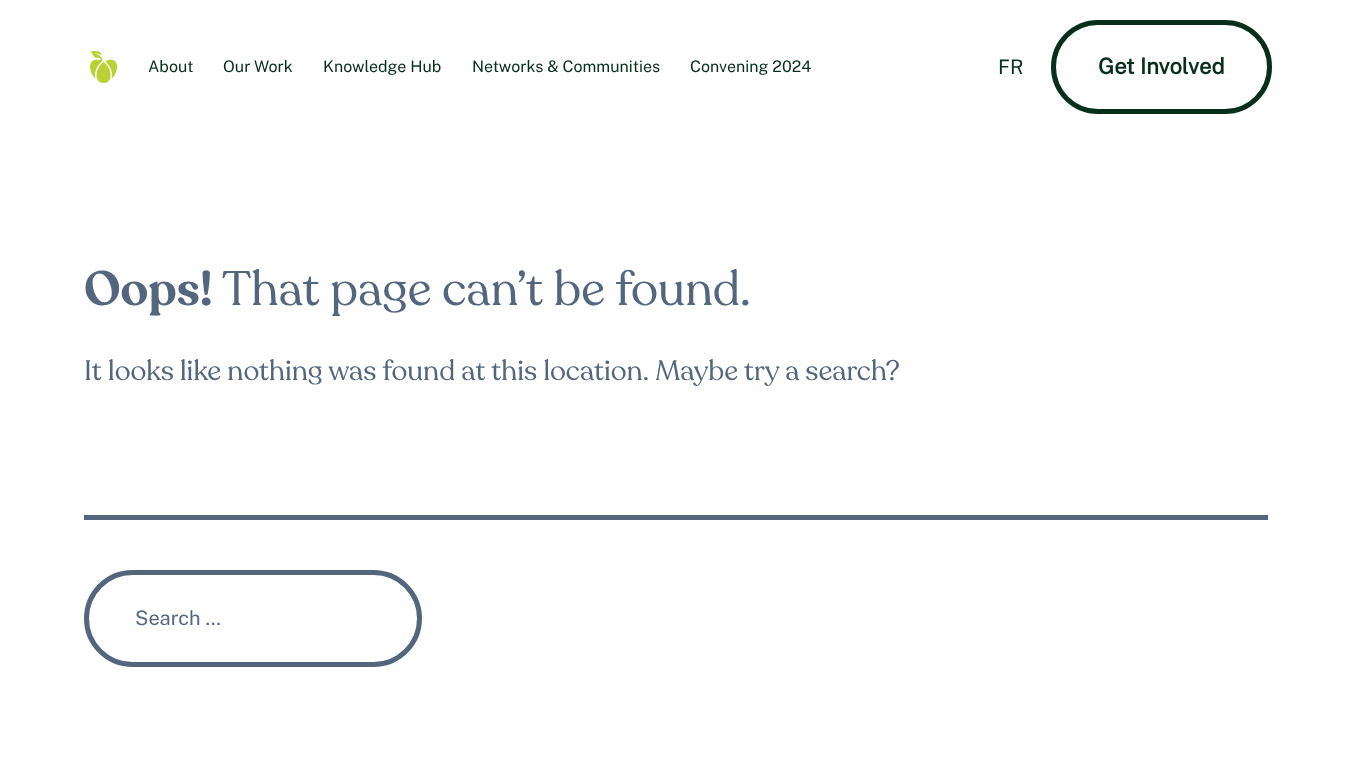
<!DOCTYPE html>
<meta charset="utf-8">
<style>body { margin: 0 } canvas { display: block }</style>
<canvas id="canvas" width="1352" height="757"></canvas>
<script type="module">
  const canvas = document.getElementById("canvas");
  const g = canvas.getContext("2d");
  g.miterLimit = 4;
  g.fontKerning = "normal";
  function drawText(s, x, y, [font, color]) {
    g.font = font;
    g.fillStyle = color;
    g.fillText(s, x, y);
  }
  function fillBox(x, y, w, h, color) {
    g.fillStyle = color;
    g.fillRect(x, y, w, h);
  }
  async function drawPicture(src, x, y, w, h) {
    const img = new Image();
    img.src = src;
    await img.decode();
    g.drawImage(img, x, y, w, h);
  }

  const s1 = ["16px Public Sans", "#072F1C"];
  const s2 = ["20px Public Sans", "#072F1C"];
  const s3 = ["bold 22px Public Sans", "#072F1C"];
  const s4 = ["600 48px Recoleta", "#54667E"];
  const s5 = ["48px Recoleta", "#54667E"];
  const s6 = ["28px Recoleta", "#54667E"];
  const s7 = ["20px Public Sans", "#54667E"];

  fillBox(0, 0, 1352, 757, "#FFFFFF");
  await drawPicture("pic1.png", 90, 51, 28, 32);
  drawText("About", 148, 72, s1);
  drawText("Our Work", 223, 72, s1);
  drawText("Knowledge Hub", 323, 72, s1);
  drawText("Networks & Communities", 472, 72, s1);
  drawText("Convening 2024", 690, 72, s1);
  drawText("FR", 998, 74, s2);
  g.beginPath();
  g.roundRect(1053.5, 22.5, 216, 89, 44.5);
  g.strokeStyle = "#072F1C";
  g.lineWidth = 5;
  g.stroke();
  drawText("Get Involved", 1098, 74, s3);
  drawText("Oops!", 84, 305, s4);
  drawText("That page can’t be found.", 222, 305, s5);
  drawText("It looks like nothing was found at this location. Maybe try a search?", 84, 380, s6);
  fillBox(84, 515, 1184, 5, "#54667E");
  g.beginPath();
  g.roundRect(86.5, 572.5, 333, 92, 46);
  g.strokeStyle = "#54667E";
  g.stroke();
  drawText("Search …", 135, 625, s7);
</script>
